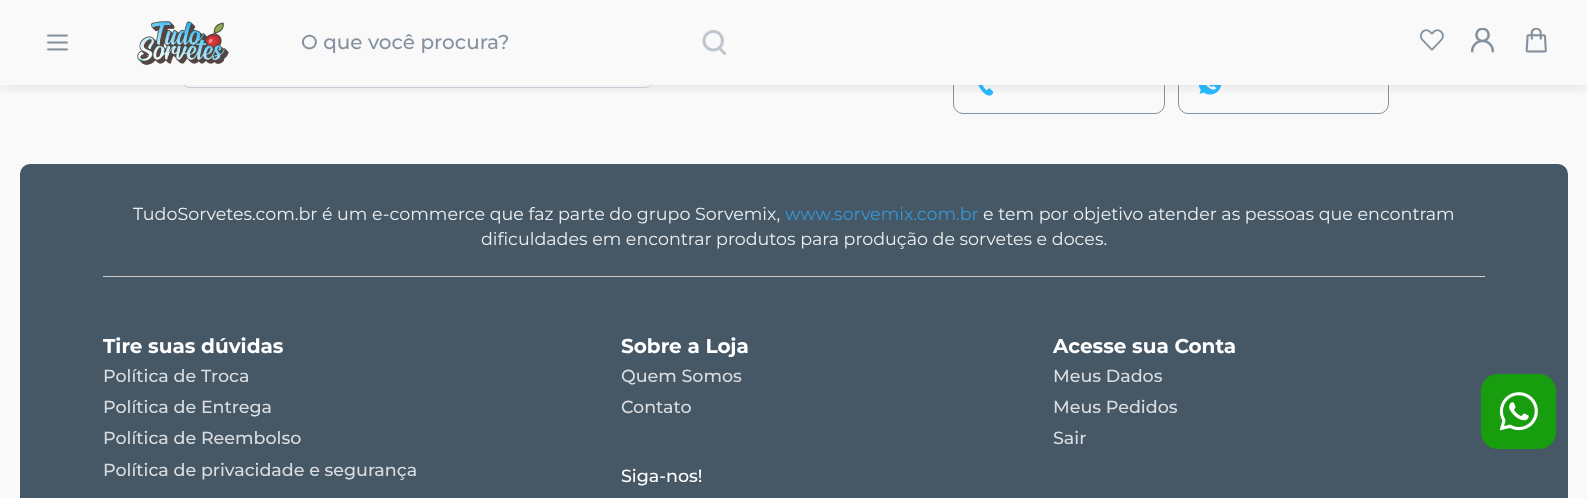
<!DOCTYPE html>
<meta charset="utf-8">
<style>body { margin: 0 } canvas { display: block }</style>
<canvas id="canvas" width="1587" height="498"></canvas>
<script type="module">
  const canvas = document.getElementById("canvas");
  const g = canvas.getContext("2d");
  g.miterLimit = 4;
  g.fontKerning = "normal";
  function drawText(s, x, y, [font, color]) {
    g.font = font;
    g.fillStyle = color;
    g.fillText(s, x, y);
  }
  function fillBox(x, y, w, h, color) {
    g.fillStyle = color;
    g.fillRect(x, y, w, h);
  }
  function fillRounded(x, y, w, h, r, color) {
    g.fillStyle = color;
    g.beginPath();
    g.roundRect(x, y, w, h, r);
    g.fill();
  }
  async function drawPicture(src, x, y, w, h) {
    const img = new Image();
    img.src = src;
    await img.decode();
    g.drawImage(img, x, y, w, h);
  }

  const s1 = ["500 20px Montserrat", "#8492A0"];
  const s2 = ["17.5px Montserrat", "#ECF0F1"];
  const s3 = ["17.5px Montserrat", "#3598DB"];
  const s4 = ["bold 20px Montserrat", "#FFFFFF"];
  const s5 = ["500 17.5px Montserrat", "#DADDE0"];
  const s6 = ["500 17.5px Montserrat", "#FFFFFF"];

  fillBox(0, 0, 1587, 498, "#F9F9F9");
  g.fillStyle = "#FFFFFF";
  g.beginPath();
  g.roundRect(180.5, 28.5, 474, 59, 9.5);
  g.fill();
  g.strokeStyle = "#CCD6E0";
  g.stroke();
  g.beginPath();
  g.roundRect(953.5, 54.5, 211, 59, 9.5);
  g.strokeStyle = "#8492A0";
  g.stroke();
  g.beginPath();
  g.roundRect(1178.5, 54.5, 210, 59, 9.5);
  g.stroke();
  fillBox(180, 28, 1209, 57, "#F9F9F9");
  await drawPicture("pic7.png", 978, 85, 16, 11);
  await drawPicture("pic8.png", 1198, 85, 24, 10);
  g.save();
  g.beginPath();
  g.rect(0, 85, 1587, 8);
  g.clip();
  g.fillStyle = "rgba(0, 0, 0, 0.08)";
  g.filter = "blur(7.5px)";
  g.beginPath();
  g.rect(0, 3, 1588, 85);
  g.fill();
  g.filter = "none";
  g.restore();
  await drawPicture("pic1.png", 47, 34, 21, 17);
  await drawPicture("pic2.png", 137, 21, 92, 44);
  drawText("O que você procura?", 301, 49, s1);
  await drawPicture("pic3.png", 702, 30, 24, 25);
  await drawPicture("pic4.png", 1420, 29, 24, 22);
  await drawPicture("pic5.png", 1471, 28, 23, 25);
  await drawPicture("pic6.png", 1525, 28, 22, 25);
  fillRounded(20, 164, 1548, 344, 10, "#465766");
  drawText("TudoSorvetes.com.br é um e-commerce que faz parte do grupo Sorvemix,", 133, 220, s2);
  drawText("www.sorvemix.com.br", 785, 220, s3);
  drawText("e tem por objetivo atender as pessoas que encontram", 983, 220, s2);
  drawText("dificuldades em encontrar produtos para produção de sorvetes e doces.", 481, 245, s2);
  fillBox(103, 276, 1382, 1, "#CECECE");
  drawText("Tire suas dúvidas", 103, 353, s4);
  drawText("Política de Troca", 103, 382, s5);
  drawText("Política de Entrega", 103, 413, s5);
  drawText("Política de Reembolso", 103, 444, s5);
  drawText("Política de privacidade e segurança", 103, 476, s5);
  drawText("Sobre a Loja", 621, 353, s4);
  drawText("Quem Somos", 621, 382, s5);
  drawText("Contato", 621, 413, s5);
  drawText("Siga-nos!", 621, 482, s6);
  drawText("Acesse sua Conta", 1053, 353, s4);
  drawText("Meus Dados", 1053, 382, s5);
  drawText("Meus Pedidos", 1053, 413, s5);
  drawText("Sair", 1053, 444, s5);
  await drawPicture("pic9.png", 1481, 374, 75, 75);
</script>
